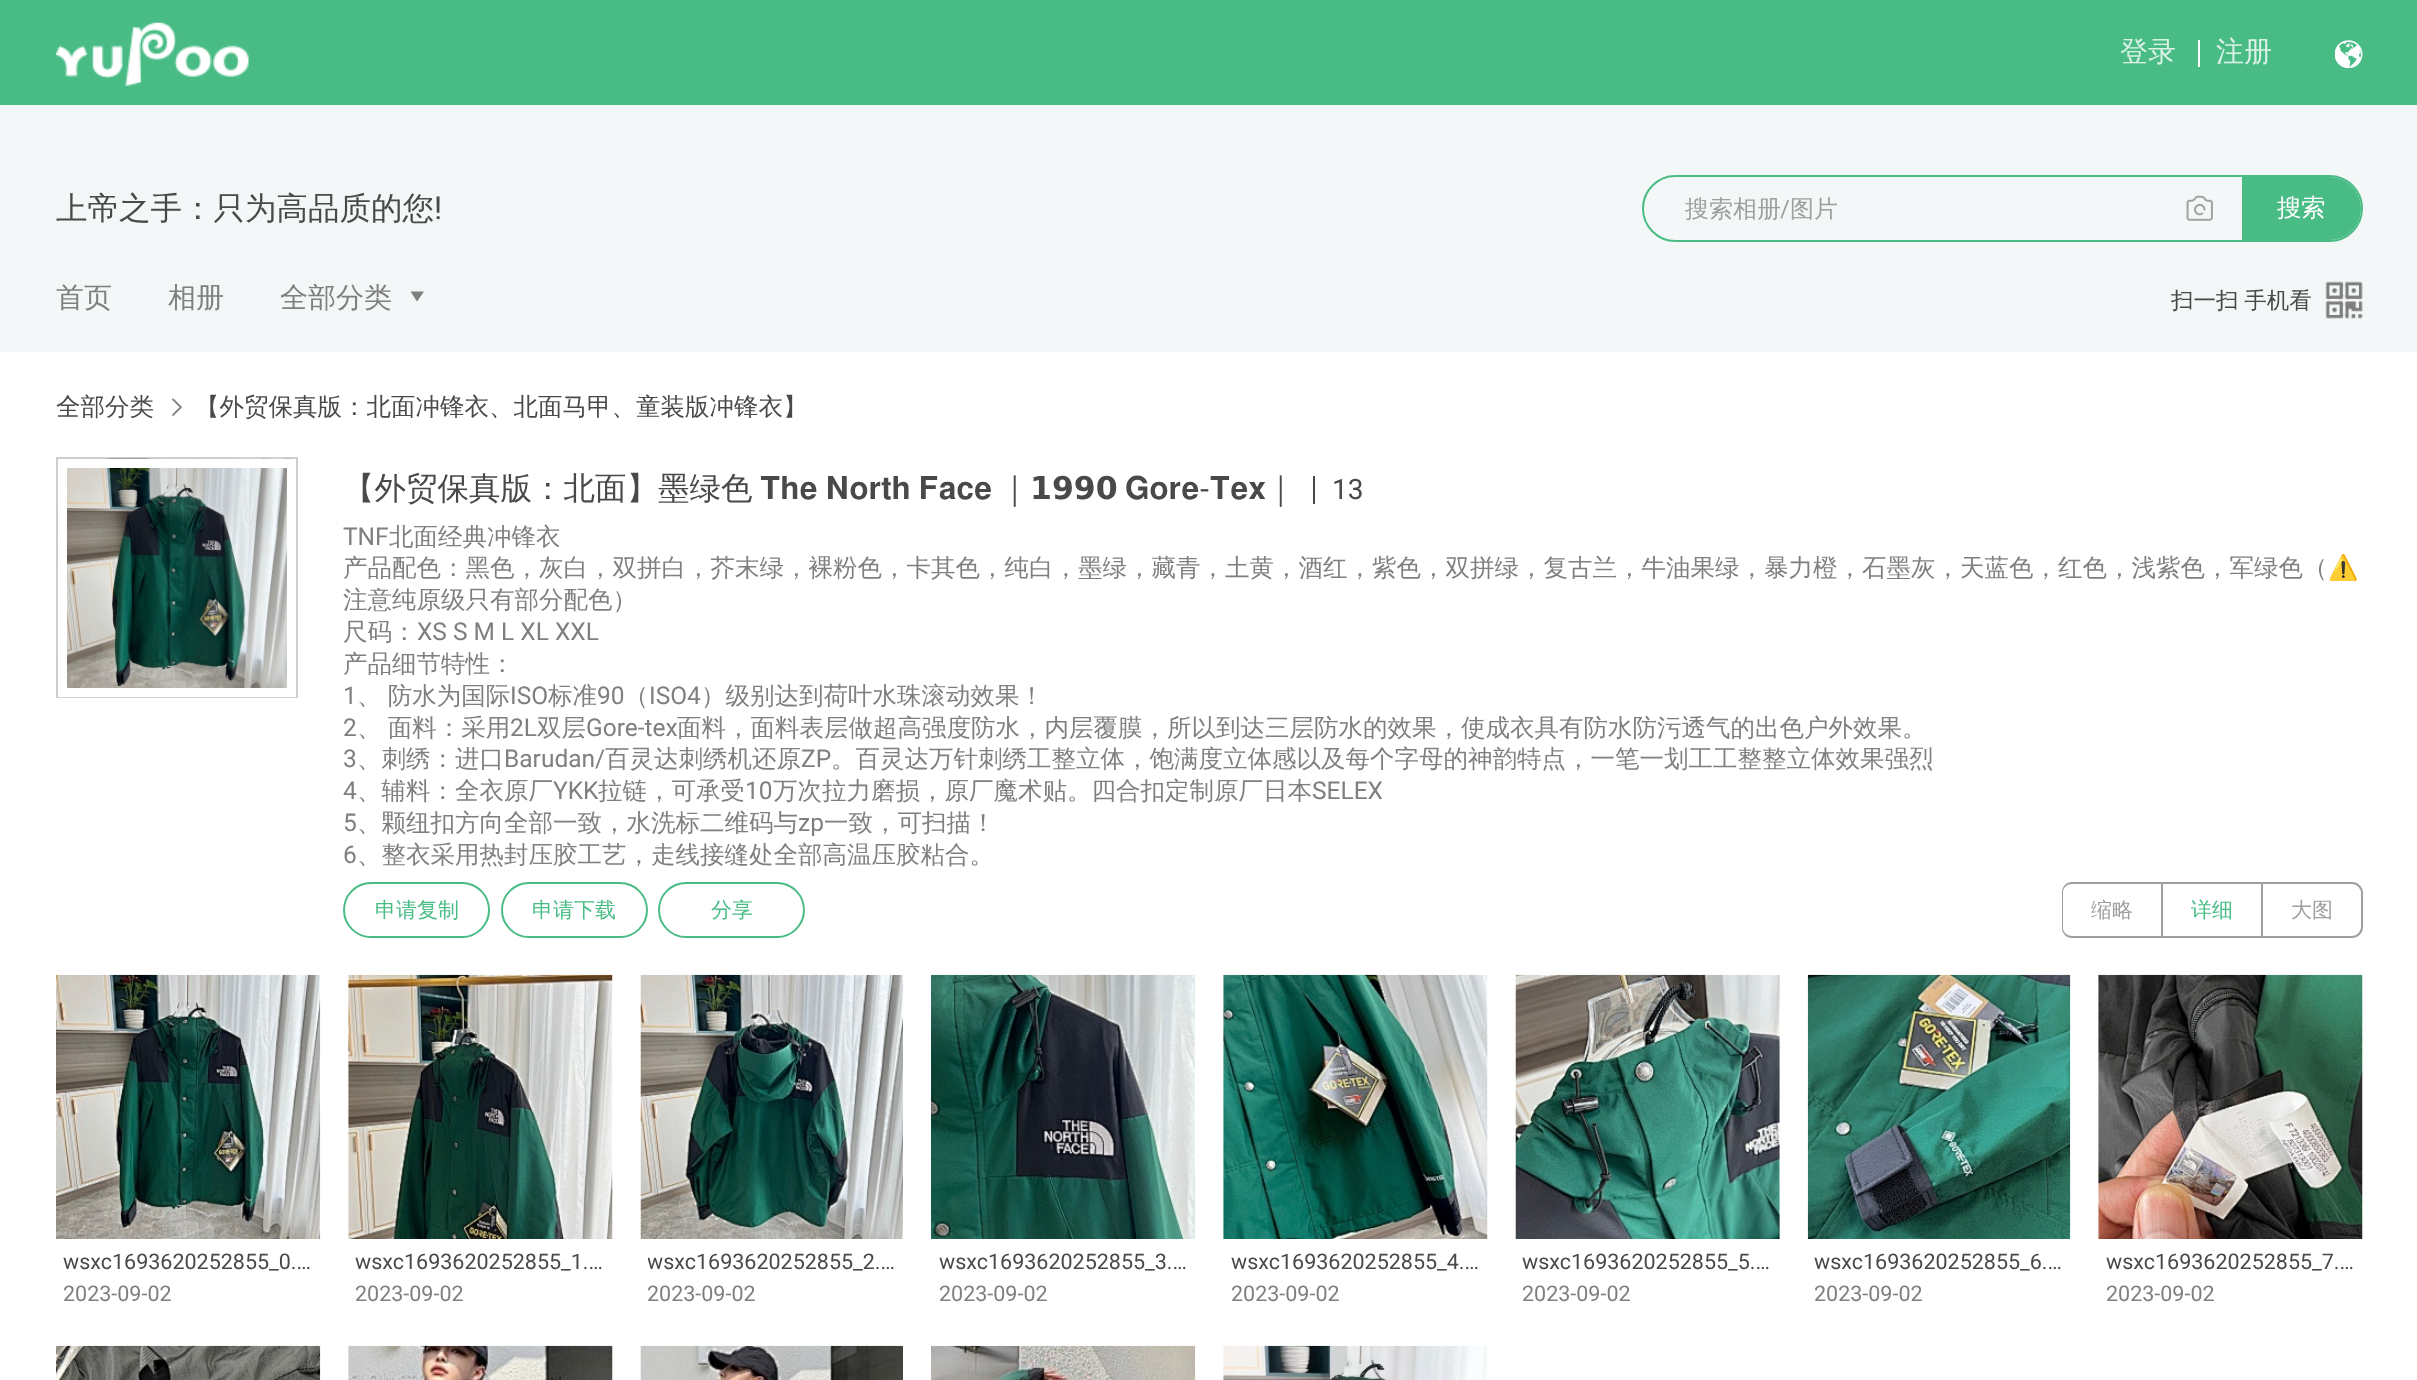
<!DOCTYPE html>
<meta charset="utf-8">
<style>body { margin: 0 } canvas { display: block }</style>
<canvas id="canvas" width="2417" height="1380"></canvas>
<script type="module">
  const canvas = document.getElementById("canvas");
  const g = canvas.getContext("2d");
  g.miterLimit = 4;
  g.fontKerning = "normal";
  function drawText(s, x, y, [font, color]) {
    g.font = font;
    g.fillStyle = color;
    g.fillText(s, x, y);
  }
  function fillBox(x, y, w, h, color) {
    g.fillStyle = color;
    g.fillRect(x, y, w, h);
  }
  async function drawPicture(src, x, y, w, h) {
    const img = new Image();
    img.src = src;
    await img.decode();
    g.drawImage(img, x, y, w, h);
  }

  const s1 = ["500 28px WenQuanYi Zen Hei", "#DBF2E7"];
  const s2 = ["500 31.5px WenQuanYi Zen Hei", "#494949"];
  const s3 = ["31.5px Roboto", "#494949"];
  const s4 = ["500 24px WenQuanYi Zen Hei", "#9F9F9F"];
  const s5 = ["24px Roboto", "#9F9F9F"];
  const s6 = ["24.5px Noto Sans", "#FFFFFF"];
  const s7 = ["500 24.5px WenQuanYi Zen Hei", "#FFFFFF"];
  const s8 = ["500 28px WenQuanYi Zen Hei", "#7F7F7F"];
  const s9 = ["500 22.5px WenQuanYi Zen Hei", "#494949"];
  const s10 = ["500 24.5px WenQuanYi Zen Hei", "#494949"];
  const s11 = ["31.5px FreeSans", "#494949"];
  const s12 = ["bold 31.5px DejaVu Sans", "#494949"];
  const s13 = ["28px Roboto", "#494949"];
  const s14 = ["24.5px Roboto", "#7F7F7F"];
  const s15 = ["500 24.5px WenQuanYi Zen Hei", "#7F7F7F"];
  const s16 = ["24.5px Noto Color Emoji", "#7F7F7F"];
  const s17 = ["500 21px WenQuanYi Zen Hei", "#49BC85"];
  const s18 = ["500 21px WenQuanYi Zen Hei", "#9F9F9F"];
  const s19 = ["21.5px Roboto", "#494949"];
  const s20 = ["21.5px Roboto", "#7F7F7F"];

  fillBox(0, 0, 2417, 1380, "#FFFFFF");
  fillBox(0, 0, 2417, 105, "#49BC85");
  await drawPicture("pic1.png", 56, 22, 193, 64);
  drawText("登录", 2120, 61, s1);
  fillBox(2198, 40, 2, 27, "#FFFFFF");
  drawText("注册", 2216, 61, s1);
  await drawPicture("pic2.png", 2335, 40, 28, 28);
  fillBox(0, 105, 2417, 247, "#F3F7F7");
  drawText("上帝之手：只为高品质的您", 56, 219, s2);
  drawText("!", 434, 219, s3);
  g.beginPath();
  g.roundRect(1643, 176, 719, 65, 32.5);
  g.strokeStyle = "#49BC85";
  g.lineWidth = 2;
  g.stroke();
  drawText("搜索相册", 1685, 217, s4);
  drawText("/", 1780, 217, s5);
  drawText("图片", 1790, 217, s4);
  await drawPicture("pic3.png", 2186, 195, 27, 26);
  g.fillStyle = "#49BC85";
  g.beginPath();
  g.roundRect(2243, 178, 117, 61, [0, 30.5, 30.5, 0]);
  g.fill();
  g.stroke();
  drawText("搜", 2277, 216, s6);
  drawText("索", 2301, 216, s7);
  drawText("首页", 56, 307, s8);
  drawText("相册", 168, 307, s8);
  drawText("全部分类", 280, 307, s8);
  g.beginPath();
  g.moveTo(417, 301.5);
  g.lineTo(410.5, 291.5);
  g.lineTo(424, 291.5);
  g.closePath();
  g.fill();
  g.wordSpacing = "-1px";
  drawText("扫一扫 手机看", 2171, 308, s9);
  await drawPicture("pic4.png", 2325, 281, 38, 38);
  g.wordSpacing = "0px";
  drawText("全部分类", 56, 415, s10);
  await drawPicture("pic5.png", 172, 398, 10, 18);
  drawText("【外贸保真版：北面冲锋衣、北面马甲、童装版冲锋衣】", 195, 415, s10);
  g.strokeStyle = "#CFCFCF";
  g.strokeRect(57, 458, 240, 239);
  await drawPicture("pic6.png", 57, 458, 239, 238);
  g.strokeStyle = "#FFFFFF";
  g.lineWidth = 9;
  g.strokeRect(62.5, 463.5, 229, 229);
  drawText("【外贸保真版：北面】墨绿色", 343, 499, s2);
  drawText("𝐓𝐡𝐞 𝐍𝐨𝐫𝐭𝐡 𝐅𝐚𝐜𝐞", 760, 499, s11);
  drawText("｜", 999, 499, s2);
  drawText("𝟭𝟵𝟵𝟬", 1030, 499, s12);
  drawText("𝐆𝐨𝐫𝐞-𝐓𝐞𝐱", 1125, 499, s11);
  drawText("｜", 1265, 499, s2);
  fillBox(1313, 476, 2, 28, "#494949");
  drawText("13", 1332, 499, s13);
  drawText("TNF", 343, 545, s14);
  drawText("北面经典冲锋衣", 389, 545, s15);
  drawText("产品配色：黑色，灰白，双拼白，芥末绿，裸粉色，卡其色，纯白，墨绿，藏青，土黄，酒红，紫色，双拼绿，复古兰，牛油果绿，暴力橙，石墨灰，天蓝色，红色，浅紫色，军绿色（", 343, 576, s15);
  drawText("⚠️", 2328, 576, s16);
  drawText("注意纯原级只有部分配色）", 343, 608, s15);
  drawText("尺码：", 343, 640, s15);
  drawText("XS S M L XL XXL", 417, 640, s14);
  drawText("产品细节特性：", 343, 672, s15);
  drawText("1", 343, 704, s14);
  g.wordSpacing = "-1px";
  drawText("、 防水为国际", 357, 704, s15);
  g.wordSpacing = "0px";
  drawText("ISO", 510, 704, s14);
  drawText("标准", 548, 704, s15);
  drawText("90", 597, 704, s14);
  drawText("（", 624, 704, s15);
  drawText("ISO4", 649, 704, s14);
  drawText("）级别达到荷叶水珠滚动效果！", 701, 704, s15);
  drawText("2", 343, 736, s14);
  g.wordSpacing = "-1px";
  drawText("、 面料：采用", 357, 736, s15);
  g.wordSpacing = "0px";
  drawText("2L", 510, 736, s14);
  drawText("双层", 537, 736, s15);
  drawText("Gore-tex", 586, 736, s14);
  drawText("面料，面料表层做超高强度防水，内层覆膜，所以到达三层防水的效果，使成衣具有防水防污透气的出色户外效果。", 677, 736, s15);
  drawText("3", 343, 767, s14);
  drawText("、刺绣：进口", 357, 767, s15);
  drawText("Barudan/", 504, 767, s14);
  drawText("百灵达刺绣机还原", 605, 767, s15);
  drawText("ZP", 801, 767, s14);
  drawText("。百灵达万针刺绣工整立体，饱满度立体感以及每个字母的神韵特点，一笔一划工工整整立体效果强烈", 831, 767, s15);
  drawText("4", 343, 799, s14);
  drawText("、辅料：全衣原厂", 357, 799, s15);
  drawText("YKK", 553, 799, s14);
  drawText("拉链，可承受", 598, 799, s15);
  drawText("10", 745, 799, s14);
  drawText("万次拉力磨损，原厂魔术贴。四合扣定制原厂日本", 773, 799, s15);
  drawText("SELEX", 1312, 799, s14);
  drawText("5", 343, 831, s14);
  drawText("、颗纽扣方向全部一致，水洗标二维码与", 357, 831, s15);
  drawText("zp", 798, 831, s14);
  drawText("一致，可扫描！", 824, 831, s15);
  drawText("6", 343, 863, s14);
  drawText("、整衣采用热封压胶工艺，走线接缝处全部高温压胶粘合。", 357, 863, s15);
  g.beginPath();
  g.roundRect(344, 883, 145, 54, 27);
  g.strokeStyle = "#49BC85";
  g.lineWidth = 2;
  g.stroke();
  drawText("申请复制", 375, 917, s17);
  g.beginPath();
  g.roundRect(502, 883, 145, 54, 27);
  g.stroke();
  drawText("申请下载", 532, 917, s17);
  g.beginPath();
  g.roundRect(659, 883, 145, 54, 27);
  g.stroke();
  drawText("分享", 711, 917, s17);
  g.fillStyle = "#9F9F9F";
  g.beginPath();
  g.moveTo(2072, 882);
  g.lineTo(2161, 882);
  g.lineTo(2161, 938);
  g.lineTo(2072, 938);
  g.bezierCurveTo(2066, 938, 2062, 933, 2062, 928);
  g.lineTo(2062, 892);
  g.bezierCurveTo(2062, 887, 2066, 882, 2072, 882);
  g.closePath();
  g.moveTo(2072, 884);
  g.lineTo(2161, 884);
  g.lineTo(2161, 936);
  g.lineTo(2072, 936);
  g.bezierCurveTo(2067, 936, 2063, 932, 2063, 928);
  g.lineTo(2063, 892);
  g.bezierCurveTo(2063, 888, 2067, 884, 2072, 884);
  g.closePath();
  g.fill("evenodd");
  drawText("缩略", 2091, 917, s18);
  fillBox(2161, 882, 100, 2, "#9F9F9F");
  fillBox(2161, 936, 100, 2, "#9F9F9F");
  fillBox(2161, 882, 2, 56, "#9F9F9F");
  drawText("详细", 2191, 917, s17);
  g.beginPath();
  g.roundRect(2262, 883, 100, 54, [0, 10, 10, 0]);
  g.strokeStyle = "#9F9F9F";
  g.stroke();
  drawText("大图", 2291, 917, s18);
  await drawPicture("pic7.png", 56, 974, 265, 265);
  drawText("wsxc1693620252855_0.…", 63, 1269, s19);
  drawText("2023-09-02", 63, 1301, s20);
  await drawPicture("pic8.png", 348, 974, 265, 265);
  drawText("wsxc1693620252855_1.…", 355, 1269, s19);
  drawText("2023-09-02", 355, 1301, s20);
  await drawPicture("pic9.png", 640, 974, 263, 265);
  g.save();
  g.beginPath();
  g.rect(648, 1246, 248, 32);
  g.clip();
  drawText("wsxc1693620252855_2.…", 647, 1269, s19);
  g.restore();
  drawText("2023-09-02", 647, 1301, s20);
  await drawPicture("pic10.png", 931, 974, 264, 265);
  drawText("wsxc1693620252855_3.…", 939, 1269, s19);
  drawText("2023-09-02", 939, 1301, s20);
  await drawPicture("pic11.png", 1223, 974, 265, 265);
  drawText("wsxc1693620252855_4.…", 1231, 1269, s19);
  drawText("2023-09-02", 1231, 1301, s20);
  await drawPicture("pic12.png", 1515, 974, 265, 265);
  drawText("wsxc1693620252855_5.…", 1522, 1269, s19);
  drawText("2023-09-02", 1522, 1301, s20);
  await drawPicture("pic13.png", 1807, 974, 264, 265);
  drawText("wsxc1693620252855_6.…", 1814, 1269, s19);
  drawText("2023-09-02", 1814, 1301, s20);
  await drawPicture("pic14.png", 2098, 974, 265, 265);
  drawText("wsxc1693620252855_7.…", 2106, 1269, s19);
  drawText("2023-09-02", 2106, 1301, s20);
  await drawPicture("pic15.png", 56, 1345, 265, 35);
  await drawPicture("pic16.png", 348, 1345, 265, 35);
  await drawPicture("pic17.png", 640, 1345, 263, 35);
  await drawPicture("pic18.png", 931, 1345, 265, 35);
  await drawPicture("pic19.png", 1223, 1345, 264, 35);
</script>
